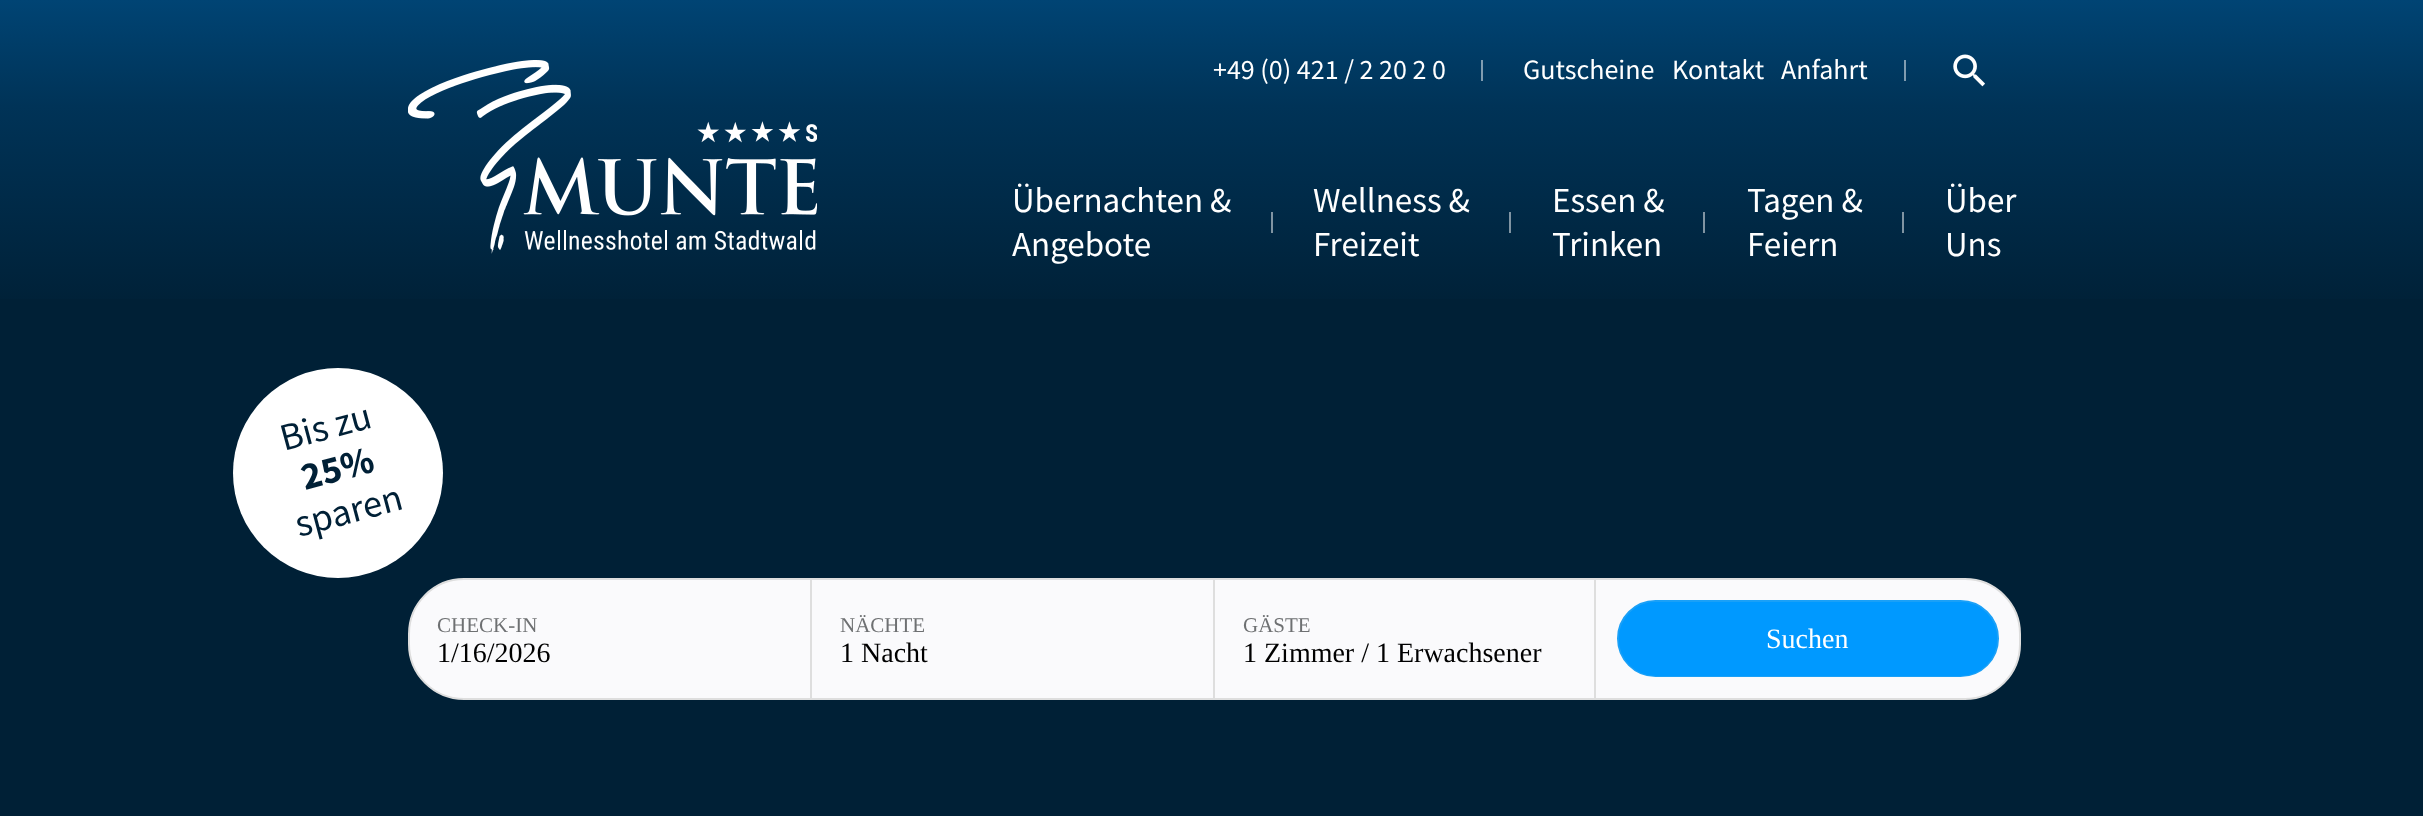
<!DOCTYPE html>
<meta charset="utf-8">
<style>body { margin: 0 } canvas { display: block }</style>
<canvas id="canvas" width="2423" height="816"></canvas>
<script type="module">
  const canvas = document.getElementById("canvas");
  const g = canvas.getContext("2d");
  g.miterLimit = 4;
  g.fontKerning = "normal";
  function drawText(s, x, y, [font, color]) {
    g.font = font;
    g.fillStyle = color;
    g.fillText(s, x, y);
  }
  function fillBox(x, y, w, h, color) {
    g.fillStyle = color;
    g.fillRect(x, y, w, h);
  }
  function fillRounded(x, y, w, h, r, color) {
    g.fillStyle = color;
    g.beginPath();
    g.roundRect(x, y, w, h, r);
    g.fill();
  }
  async function drawPicture(src, x, y, w, h) {
    const img = new Image();
    img.src = src;
    await img.decode();
    g.drawImage(img, x, y, w, h);
  }
  let gradient;

  const s1 = ["28px Source Sans Pro", "#FFFFFF"];
  const s2 = ["35px Source Sans Pro", "#FFFFFF"];
  const s3 = ["21px Liberation Serif", "#6E7072"];
  const s4 = ["28px Liberation Serif", "#000000"];
  const s5 = ["28px Liberation Serif", "#FFFFFF"];

  fillBox(0, 0, 2423, 816, "#002036");
  gradient = g.createLinearGradient(1212, 0, 1212, 315);
  gradient.addColorStop(0, "#004474");
  gradient.addColorStop(0.34, "#003357");
  gradient.addColorStop(1, "#002036");
  g.fillStyle = gradient;
  g.fillRect(0, 0, 2423, 299);
  gradient = g.createLinearGradient(1212, 0, 1212, 315);
  gradient.addColorStop(0, "#80A2BA");
  gradient.addColorStop(0.34, "#8099AB");
  gradient.addColorStop(1, "#80909B");
  g.fillStyle = gradient;
  g.fillRect(1904, 60, 2, 21);
  g.fillRect(1481, 60, 2, 21);
  g.fillRect(1902, 212, 2, 21);
  g.fillRect(1703, 212, 2, 21);
  g.fillRect(1509, 212, 2, 21);
  g.fillRect(1271, 212, 2, 21);
  await drawPicture("pic1.png", 408, 60, 409, 194);
  drawText("+49 (0) 421 / 2 20 2 0", 1213, 79, s1);
  drawText("Gutscheine", 1523, 79, s1);
  drawText("Kontakt", 1672, 79, s1);
  drawText("Anfahrt", 1781, 79, s1);
  await drawPicture("pic2.png", 1953, 54, 32, 33);
  drawText("Übernachten &", 1012, 212, s2);
  drawText("Angebote", 1012, 256, s2);
  drawText("Wellness &", 1313, 212, s2);
  drawText("Freizeit", 1313, 256, s2);
  drawText("Essen &", 1552, 212, s2);
  drawText("Trinken", 1552, 256, s2);
  drawText("Tagen &", 1747, 212, s2);
  drawText("Feiern", 1747, 256, s2);
  drawText("Über", 1945, 212, s2);
  drawText("Uns", 1945, 256, s2);
  g.beginPath();
  g.arc(338, 473, 105, 0, Math.PI * 2);
  g.fill();
  g.font = "38.5px Source Sans Pro";
  g.fillStyle = "#002036";
  g.save();
  g.translate(284, 451);
  g.rotate(-15 * Math.PI / 180);
  g.fillText("Bis zu", 0, 0);
  g.restore();
  g.font = "bold 38.5px Source Sans Pro";
  g.save();
  g.translate(305, 490);
  g.rotate(-15 * Math.PI / 180);
  g.fillText("25%", 0, 0);
  g.restore();
  g.font = "38.5px Source Sans Pro";
  g.save();
  g.translate(299, 537);
  g.rotate(-15 * Math.PI / 180);
  g.fillText("sparen", 0, 0);
  g.restore();
  g.fillStyle = "#FAFAFC";
  g.beginPath();
  g.roundRect(409, 579, 1611, 120, 55);
  g.fill();
  g.strokeStyle = "#DEDEDE";
  g.lineWidth = 2;
  g.stroke();
  drawText("CHECK-IN", 437, 632, s3);
  drawText("1/16/2026", 437, 662, s4);
  fillBox(810, 579, 2, 119, "#DEDEDE");
  drawText("NÄCHTE", 840, 632, s3);
  drawText("1 Nacht", 840, 662, s4);
  fillBox(1213, 579, 2, 119, "#DEDEDE");
  drawText("GÄSTE", 1243, 632, s3);
  drawText("1 Zimmer / 1 Erwachsener", 1243, 662, s4);
  fillBox(1594, 579, 2, 119, "#DEDEDE");
  g.fillStyle = "#0099FF";
  g.beginPath();
  g.roundRect(1618, 601, 380, 75, 37.5);
  g.fill();
  g.strokeStyle = "#1AA0F7";
  g.stroke();
  fillRounded(1619, 602, 378, 74, 37, "#0099FF");
  drawText("Suchen", 1766, 648, s5);
</script>
